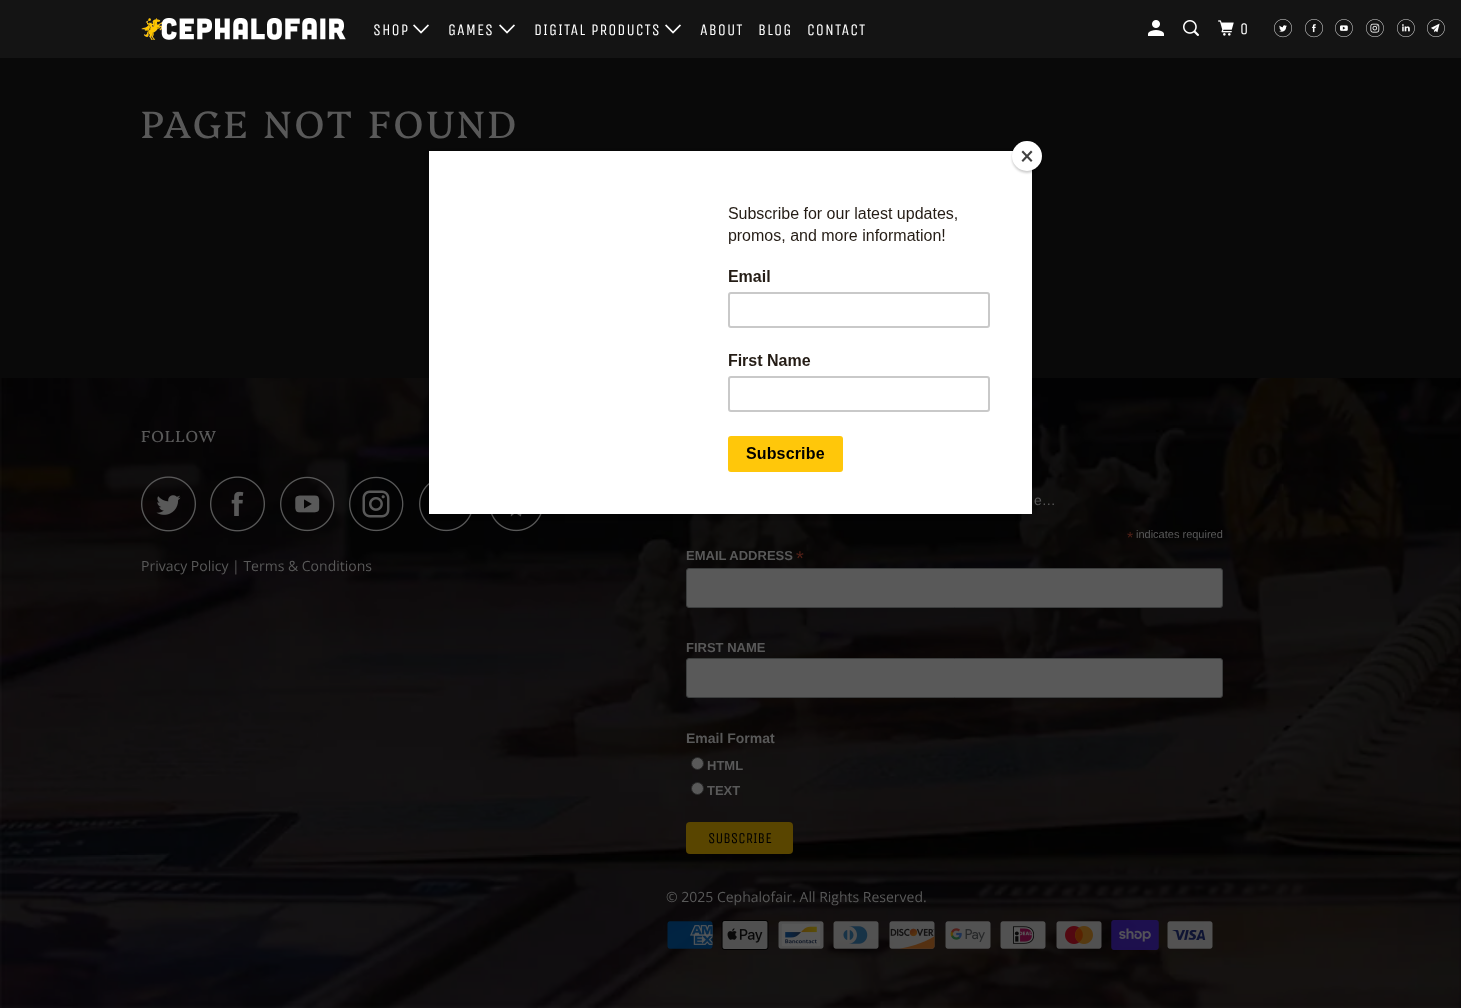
<!DOCTYPE html>
<meta charset="utf-8">
<style>body { margin: 0 } canvas { display: block }</style>
<canvas id="canvas" width="1461" height="1008"></canvas>
<script type="module">
  const canvas = document.getElementById("canvas");
  const g = canvas.getContext("2d");
  g.miterLimit = 4;
  g.fontKerning = "normal";
  function drawText(s, x, y, [font, color]) {
    g.font = font;
    g.fillStyle = color;
    g.fillText(s, x, y);
  }
  function fillBox(x, y, w, h, color) {
    g.fillStyle = color;
    g.fillRect(x, y, w, h);
  }
  function fillRounded(x, y, w, h, r, color) {
    g.fillStyle = color;
    g.beginPath();
    g.roundRect(x, y, w, h, r);
    g.fill();
  }
  async function drawPicture(src, x, y, w, h) {
    const img = new Image();
    img.src = src;
    await img.decode();
    g.drawImage(img, x, y, w, h);
  }

  const s1 = ["16px Unica One", "#FFFFFF"];
  const s2 = ["38px Platypi", "#595959"];
  const s3 = ["16px Platypi", "#595959"];
  const s4 = ["14px Open Sans", "#595959"];
  const s5 = ["14px Liberation Sans", "#595959"];
  const s6 = ["16px Liberation Sans", "#512017"];
  const s7 = ["11px Liberation Sans", "#595959"];
  const s8 = ["bold 13px Liberation Sans", "#595959"];
  const s9 = ["20px Liberation Sans", "#512017"];
  const s10 = ["bold 14px Liberation Sans", "#595959"];
  const s11 = ["15px Unica One", "#000000"];

  fillBox(0, 0, 1461, 1008, "#090909");
  fillBox(0, 0, 1461, 58, "#141414");
  await drawPicture("pic1.png", 141, 18, 205, 22);
  g.letterSpacing = "1px";
  drawText("SHOP", 373, 35, s1);
  await drawPicture("pic2.png", 413, 24, 16, 10);
  drawText("GAMES", 448, 35, s1);
  await drawPicture("pic2.png", 499, 24, 16, 10);
  drawText("DIGITAL PRODUCTS", 534, 35, s1);
  await drawPicture("pic2.png", 665, 24, 16, 10);
  drawText("ABOUT", 700, 35, s1);
  drawText("BLOG", 758, 35, s1);
  drawText("CONTACT", 807, 35, s1);
  await drawPicture("pic3.png", 1148, 20, 16, 16);
  await drawPicture("pic4.png", 1183, 20, 16, 16);
  await drawPicture("pic5.png", 1218, 20, 16, 16);
  drawText("0", 1240, 34, s1);
  await drawPicture("pic6.png", 1274, 19, 18, 19);
  await drawPicture("pic7.png", 1305, 19, 18, 19);
  await drawPicture("pic8.png", 1335, 19, 18, 18);
  await drawPicture("pic9.png", 1366, 19, 18, 18);
  await drawPicture("pic10.png", 1397, 19, 18, 18);
  await drawPicture("pic11.png", 1427, 19, 18, 18);
  g.letterSpacing = "3px";
  drawText("PAGE NOT FOUND", 141, 138, s2);
  await drawPicture("pic12.png", 0, 378, 1461, 630);
  g.letterSpacing = "1px";
  drawText("FOLLOW", 141, 442, s3);
  await drawPicture("pic13.png", 141, 476, 55, 56);
  await drawPicture("pic14.png", 210, 476, 55, 56);
  await drawPicture("pic15.png", 280, 476, 55, 56);
  await drawPicture("pic16.png", 349, 476, 55, 56);
  await drawPicture("pic17.png", 419, 483, 53, 49);
  await drawPicture("pic18.png", 491, 514, 51, 18);
  g.letterSpacing = "0px";
  drawText("Privacy Policy | Terms & Conditions", 141, 571, s4);
  drawText("e…", 1034, 505, s5);
  drawText("*", 1127, 543, s6);
  drawText("indicates required", 1136, 538, s7);
  drawText("EMAIL ADDRESS", 686, 560, s8);
  drawText("*", 796, 565, s9);
  g.fillStyle = "#595959";
  g.beginPath();
  g.roundRect(686.5, 568.5, 536, 39, 2.5);
  g.fill();
  g.strokeStyle = "#3C3E3E";
  g.stroke();
  drawText("FIRST NAME", 686, 652, s8);
  g.beginPath();
  g.roundRect(686.5, 658.5, 536, 39, 2.5);
  g.fill();
  g.stroke();
  drawText("Email Format", 686, 743, s10);
  g.beginPath();
  g.arc(697.5, 763.5, 6, 0, Math.PI * 2);
  g.fill();
  g.strokeStyle = "#292929";
  g.stroke();
  drawText("HTML", 707, 770, s8);
  g.beginPath();
  g.arc(697.5, 788.5, 6, 0, Math.PI * 2);
  g.fill();
  g.stroke();
  drawText("TEXT", 707, 795, s8);
  fillRounded(686, 822, 107, 32, 4, "#594500");
  drawText("SUBSCRIBE", 708, 843, s11);
  drawText("© 2025 Cephalofair. All Rights Reserved.", 666, 902, s4);
  await drawPicture("pic19.png", 667, 921, 46, 28);
  await drawPicture("pic20.png", 721, 920, 48, 30);
  await drawPicture("pic21.png", 778, 921, 46, 28);
  await drawPicture("pic22.png", 833, 921, 46, 28);
  await drawPicture("pic23.png", 889, 921, 46, 28);
  await drawPicture("pic24.png", 945, 921, 46, 28);
  await drawPicture("pic25.png", 1000, 921, 46, 28);
  await drawPicture("pic26.png", 1056, 921, 46, 28);
  await drawPicture("pic27.png", 1111, 920, 48, 30);
  await drawPicture("pic28.png", 1167, 921, 46, 28);
  g.fillStyle = "rgba(0, 0, 0, 0.2)";
  g.filter = "blur(2px)";
  g.beginPath();
  g.rect(429, 153, 603, 363);
  g.fill();
  g.filter = "none";
  await drawPicture("pic29.png", 429, 151, 603, 363);
  g.filter = "blur(1px)";
  g.beginPath();
  g.roundRect(1012, 143, 30, 30, 15);
  g.fill();
  g.filter = "none";
  g.fillStyle = "#FFFFFF";
  g.beginPath();
  g.arc(1027, 156, 15, 0, Math.PI * 2);
  g.fill();
  g.fillStyle = "#414141";
  g.beginPath();
  g.moveTo(1031, 150.5);
  g.lineTo(1032.5, 152);
  g.lineTo(1023, 162);
  g.lineTo(1021.5, 160.5);
  g.closePath();
  g.fill();
  g.beginPath();
  g.moveTo(1021.5, 152);
  g.lineTo(1023, 150.5);
  g.lineTo(1032.5, 160.5);
  g.lineTo(1031, 162);
  g.closePath();
  g.fill();
</script>
